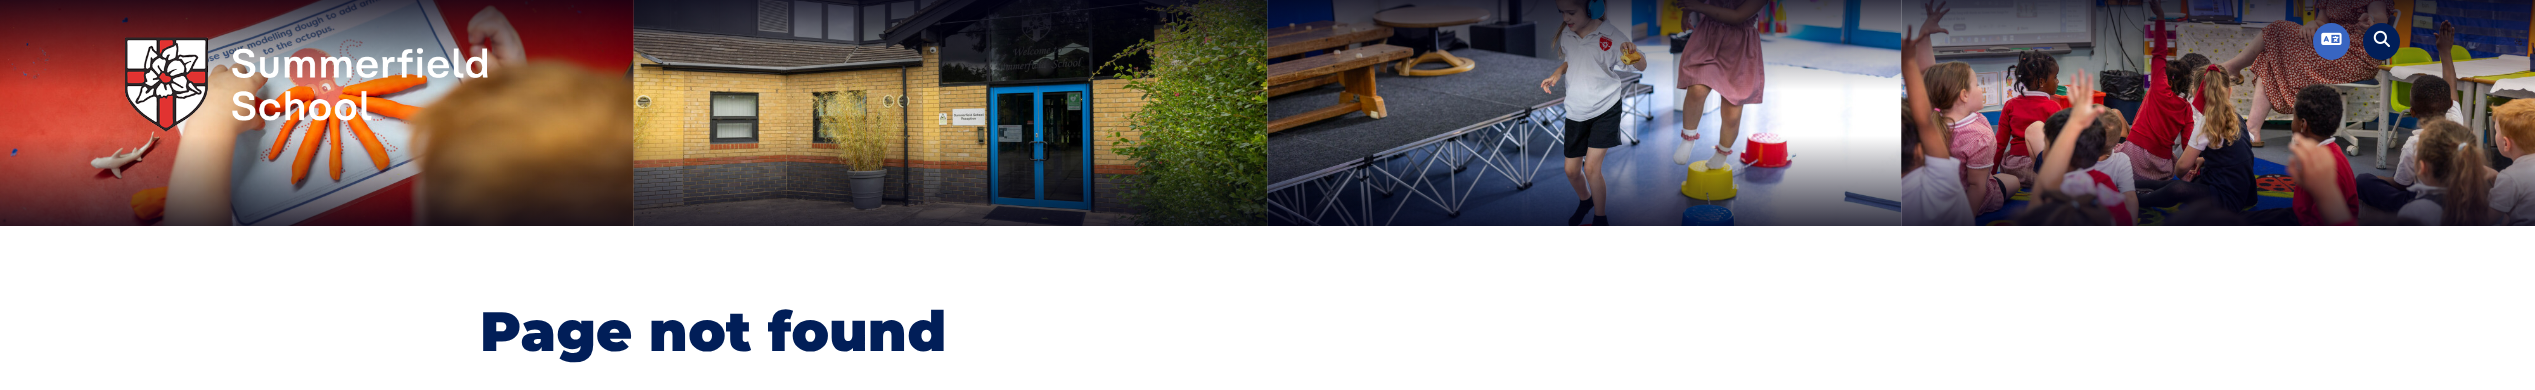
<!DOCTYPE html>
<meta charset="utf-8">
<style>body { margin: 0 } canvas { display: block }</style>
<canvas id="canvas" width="2535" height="390"></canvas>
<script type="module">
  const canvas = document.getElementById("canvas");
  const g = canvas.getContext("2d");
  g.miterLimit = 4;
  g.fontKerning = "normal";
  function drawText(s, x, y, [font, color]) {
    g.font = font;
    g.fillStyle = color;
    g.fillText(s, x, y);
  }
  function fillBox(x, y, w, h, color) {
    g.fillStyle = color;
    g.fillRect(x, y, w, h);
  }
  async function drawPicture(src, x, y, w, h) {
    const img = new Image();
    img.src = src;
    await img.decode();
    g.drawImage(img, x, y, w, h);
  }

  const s1 = ["900 55.5px Montserrat", "#011E58"];

  fillBox(0, 0, 2535, 390, "#FFFFFF");
  await drawPicture("pic1.png", 0, 0, 634, 226);
  await drawPicture("pic2.png", 633, 0, 635, 226);
  await drawPicture("pic3.png", 1267, 0, 635, 226);
  await drawPicture("pic4.png", 1901, 0, 634, 226);
  await drawPicture("pic5.png", 125, 37, 363, 95);
  g.fillStyle = "#3865C1";
  g.beginPath();
  g.arc(2331.5, 41.5, 18.5, 0, Math.PI * 2);
  g.fill();
  await drawPicture("pic6.png", 2321, 32, 21, 13);
  g.fillStyle = "#011E58";
  g.beginPath();
  g.arc(2381.5, 41.5, 18.5, 0, Math.PI * 2);
  g.fill();
  await drawPicture("pic7.png", 2373, 30, 17, 17);
  drawText("Page not found", 480, 351, s1);
</script>
